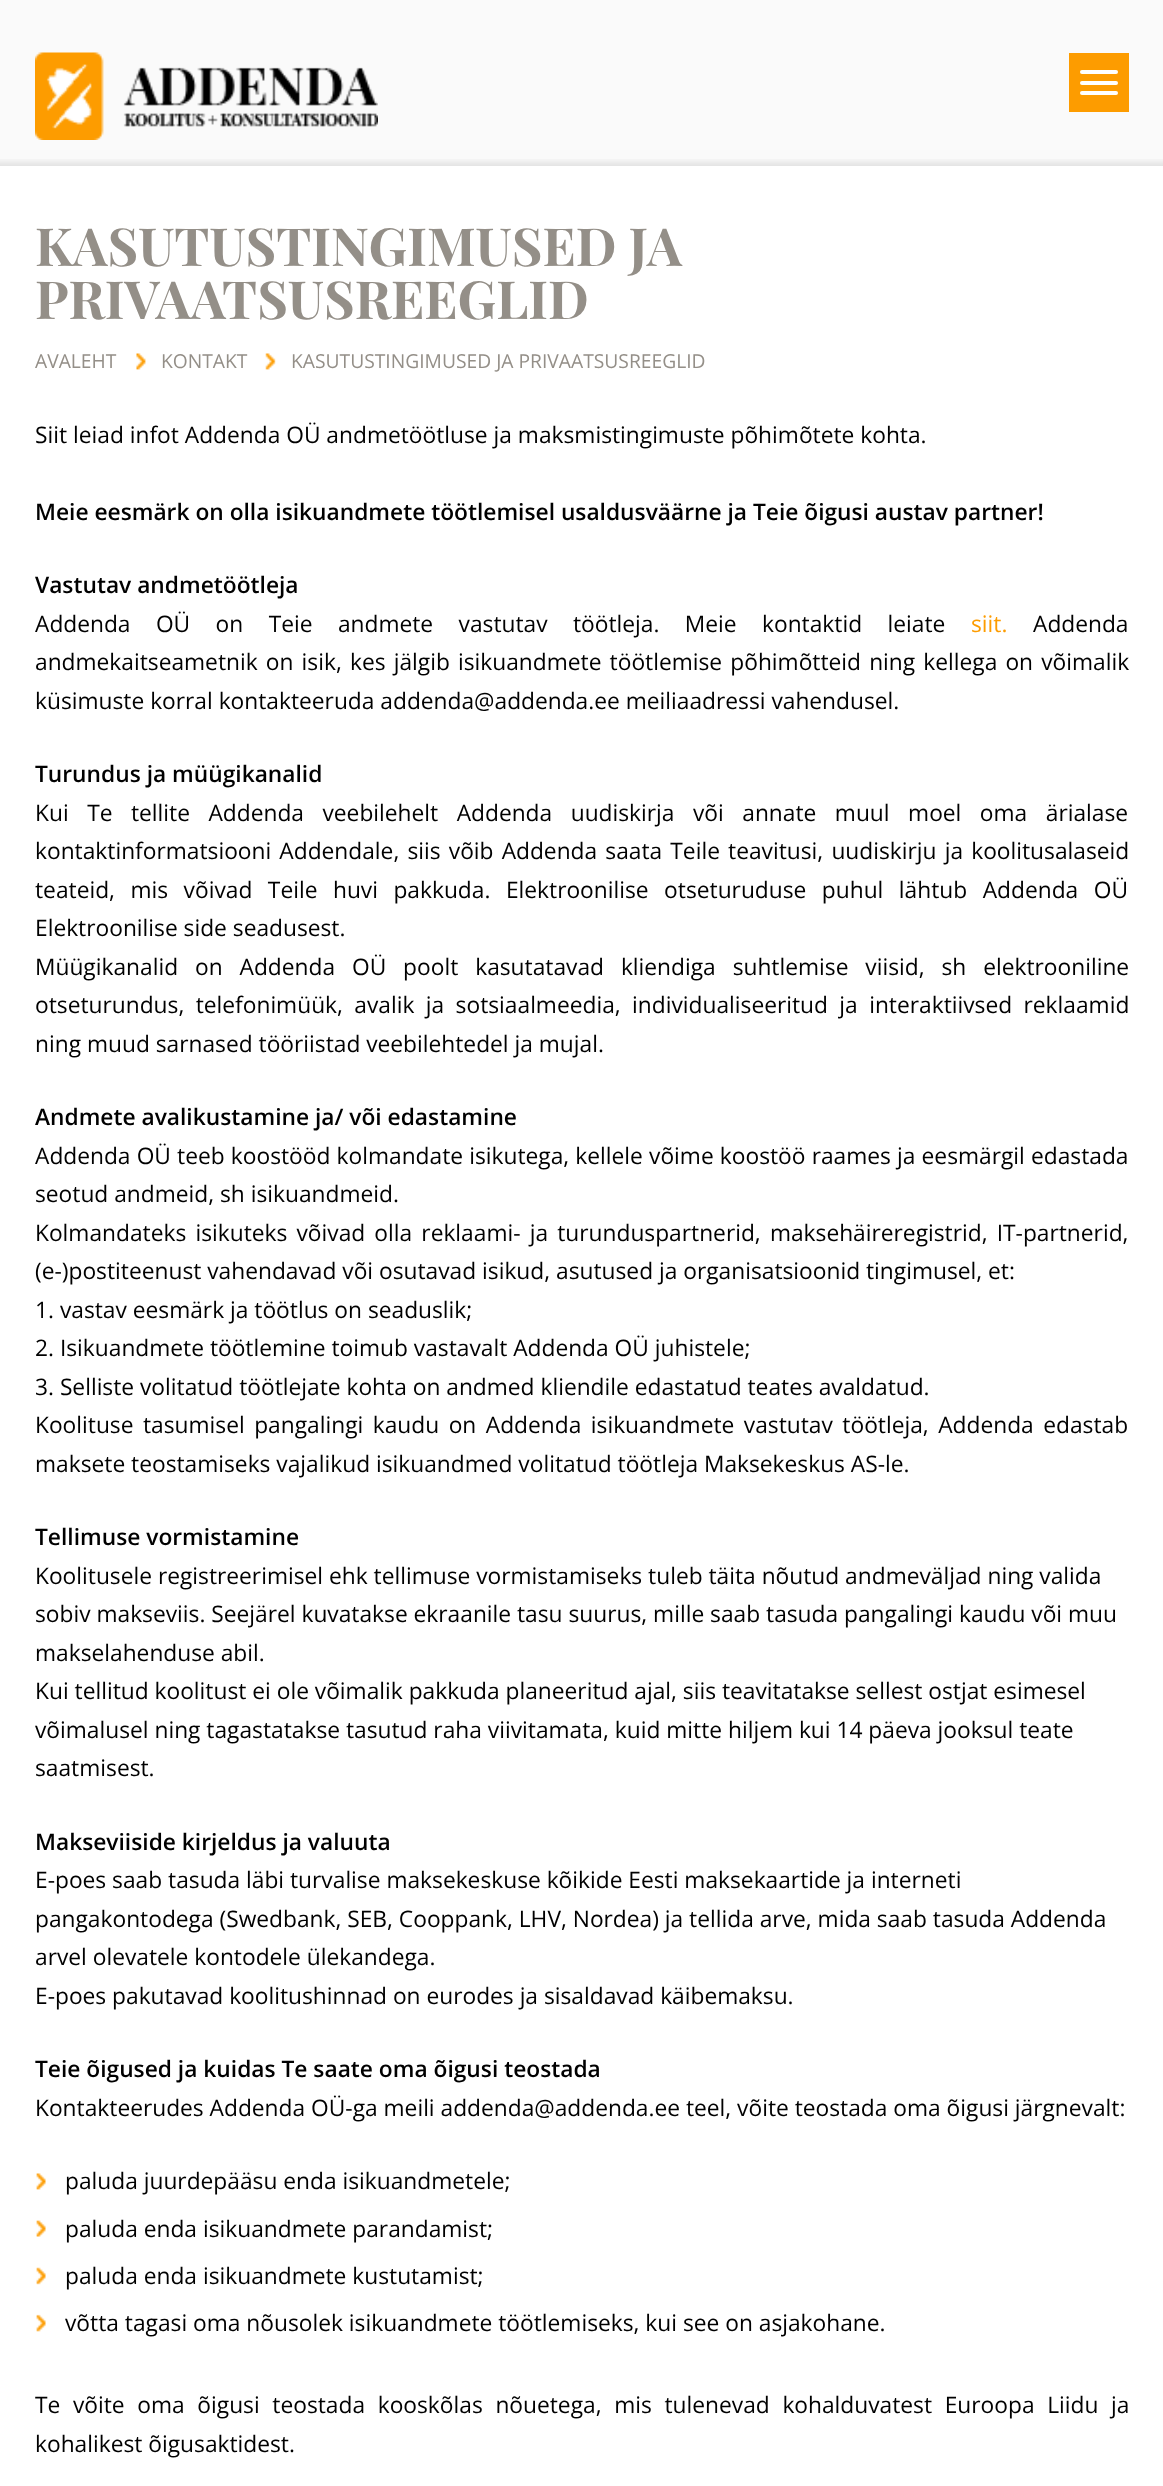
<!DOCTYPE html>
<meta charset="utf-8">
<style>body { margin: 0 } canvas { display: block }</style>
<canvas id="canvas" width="1163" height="2486"></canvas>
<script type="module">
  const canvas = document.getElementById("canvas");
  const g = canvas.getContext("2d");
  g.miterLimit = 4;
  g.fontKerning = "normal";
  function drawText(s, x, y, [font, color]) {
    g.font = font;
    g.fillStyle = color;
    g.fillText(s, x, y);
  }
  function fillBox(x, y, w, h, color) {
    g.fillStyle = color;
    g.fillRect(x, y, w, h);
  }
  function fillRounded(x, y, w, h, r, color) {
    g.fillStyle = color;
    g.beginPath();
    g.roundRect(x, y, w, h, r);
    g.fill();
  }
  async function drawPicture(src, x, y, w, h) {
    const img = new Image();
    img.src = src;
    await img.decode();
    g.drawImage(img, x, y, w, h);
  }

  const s1 = ["bold 52.5px Playfair Display SC", "#948F88"];
  const s2 = ["19.25px Open Sans", "#948F88"];
  const s3 = ["22.75px Open Sans", "#000000"];
  const s4 = ["600 22.75px Open Sans", "#000000"];
  const s5 = ["22.75px Open Sans", "#FD9C00"];

  fillBox(0, 0, 1163, 2486, "#FFFFFF");
  fillBox(0, 0, 1163, 166, "#FAFAFA");
  await drawPicture("pic1.png", 0, 159, 1163, 7);
  await drawPicture("pic2.png", 35, 52, 343, 88);
  fillBox(1069, 53, 60, 59, "#FD9C00");
  fillRounded(1080, 70, 38, 4, 2, "#FFFFFF");
  fillRounded(1080, 81, 38, 4, 2, "#FFFFFF");
  fillRounded(1080, 91, 38, 4, 2, "#FFFFFF");
  drawText("KASUTUSTINGIMUSED JA", 35, 266, s1);
  drawText("PRIVAATSUSREEGLID", 35, 319, s1);
  drawText("AVALEHT", 35, 368, s2);
  await drawPicture("pic3.png", 136, 353, 10, 17);
  drawText("KONTAKT", 161, 368, s2);
  await drawPicture("pic4.png", 265, 353, 11, 17);
  drawText("KASUTUSTINGIMUSED JA PRIVAATSUSREEGLID", 291, 368, s2);
  drawText("Siit leiad infot Addenda OÜ andmetöötluse ja maksmistingimuste põhimõtete kohta.", 35, 443, s3);
  drawText("Meie eesmärk on olla isikuandmete töötlemisel usaldusväärne ja Teie õigusi austav partner!", 35, 520, s4);
  drawText("Vastutav andmetöötleja", 35, 593, s4);
  g.wordSpacing = "19.5px";
  drawText("Addenda OÜ on Teie andmete vastutav töötleja. Meie kontaktid leiate", 35, 632, s3);
  g.wordSpacing = "0px";
  drawText("siit.", 971, 632, s5);
  drawText("Addenda", 1033, 632, s3);
  g.wordSpacing = "2.25px";
  drawText("andmekaitseametnik on isik, kes jälgib isikuandmete töötlemise põhimõtteid ning kellega on võimalik", 35, 670, s3);
  g.wordSpacing = "0px";
  drawText("küsimuste korral kontakteeruda addenda@addenda.ee meiliaadressi vahendusel.", 35, 709, s3);
  drawText("Turundus ja müügikanalid", 35, 782, s4);
  g.wordSpacing = "12.6px";
  drawText("Kui Te tellite Addenda veebilehelt Addenda uudiskirja või annate muul moel oma ärialase", 35, 821, s3);
  g.wordSpacing = "2.25px";
  drawText("kontaktinformatsiooni Addendale, siis võib Addenda saata Teile teavitusi, uudiskirju ja koolitusalaseid", 35, 859, s3);
  g.wordSpacing = "9.6px";
  drawText("teateid, mis võivad Teile huvi pakkuda. Elektroonilise otseturuduse puhul lähtub Addenda OÜ", 35, 898, s3);
  g.wordSpacing = "0px";
  drawText("Elektroonilise side seadusest.", 35, 936, s3);
  g.wordSpacing = "11px";
  drawText("Müügikanalid on Addenda OÜ poolt kasutatavad kliendiga suhtlemise viisid, sh elektrooniline", 35, 975, s3);
  g.wordSpacing = "5.5px";
  drawText("otseturundus, telefonimüük, avalik ja sotsiaalmeedia, individualiseeritud ja interaktiivsed reklaamid", 35, 1013, s3);
  g.wordSpacing = "0px";
  drawText("ning muud sarnased tööriistad veebilehtedel ja mujal.", 35, 1052, s3);
  drawText("Andmete avalikustamine ja/ või edastamine", 35, 1125, s4);
  g.wordSpacing = "0.25px";
  drawText("Addenda OÜ teeb koostööd kolmandate isikutega, kellele võime koostöö raames ja eesmärgil edastada", 35, 1164, s3);
  g.wordSpacing = "0px";
  drawText("seotud andmeid, sh isikuandmeid.", 35, 1202, s3);
  g.wordSpacing = "3.25px";
  drawText("Kolmandateks isikuteks võivad olla reklaami- ja turunduspartnerid, maksehäireregistrid, IT-partnerid,", 35, 1241, s3);
  g.wordSpacing = "0px";
  drawText("(e-)postiteenust vahendavad või osutavad isikud, asutused ja organisatsioonid tingimusel, et:", 35, 1279, s3);
  drawText("1. vastav eesmärk ja töötlus on seaduslik;", 35, 1318, s3);
  drawText("2. Isikuandmete töötlemine toimub vastavalt Addenda OÜ juhistele;", 35, 1356, s3);
  drawText("3. Selliste volitatud töötlejate kohta on andmed kliendile edastatud teates avaldatud.", 35, 1395, s3);
  g.wordSpacing = "3.6px";
  drawText("Koolituse tasumisel pangalingi kaudu on Addenda isikuandmete vastutav töötleja, Addenda edastab", 35, 1433, s3);
  g.wordSpacing = "0px";
  drawText("maksete teostamiseks vajalikud isikuandmed volitatud töötleja Maksekeskus AS-le.", 35, 1472, s3);
  drawText("Tellimuse vormistamine", 35, 1545, s4);
  drawText("Koolitusele registreerimisel ehk tellimuse vormistamiseks tuleb täita nõutud andmeväljad ning valida", 35, 1584, s3);
  drawText("sobiv makseviis. Seejärel kuvatakse ekraanile tasu suurus, mille saab tasuda pangalingi kaudu või muu", 35, 1622, s3);
  drawText("makselahenduse abil.", 35, 1661, s3);
  drawText("Kui tellitud koolitust ei ole võimalik pakkuda planeeritud ajal, siis teavitatakse sellest ostjat esimesel", 35, 1699, s3);
  drawText("võimalusel ning tagastatakse tasutud raha viivitamata, kuid mitte hiljem kui 14 päeva jooksul teate", 35, 1738, s3);
  drawText("saatmisest.", 35, 1776, s3);
  drawText("Makseviiside kirjeldus ja valuuta", 35, 1850, s4);
  drawText("E-poes saab tasuda läbi turvalise maksekeskuse kõikide Eesti maksekaartide ja interneti", 35, 1888, s3);
  drawText("pangakontodega (Swedbank, SEB, Cooppank, LHV, Nordea) ja tellida arve, mida saab tasuda Addenda", 35, 1927, s3);
  drawText("arvel olevatele kontodele ülekandega.", 35, 1965, s3);
  drawText("E-poes pakutavad koolitushinnad on eurodes ja sisaldavad käibemaksu.", 35, 2004, s3);
  drawText("Teie õigused ja kuidas Te saate oma õigusi teostada", 35, 2077, s4);
  drawText("Kontakteerudes Addenda OÜ-ga meili addenda@addenda.ee teel, võite teostada oma õigusi järgnevalt:", 35, 2116, s3);
  await drawPicture("pic5.png", 36, 2173, 10, 17);
  drawText("paluda juurdepääsu enda isikuandmetele;", 65, 2189, s3);
  await drawPicture("pic6.png", 36, 2220, 10, 17);
  drawText("paluda enda isikuandmete parandamist;", 65, 2237, s3);
  await drawPicture("pic7.png", 36, 2267, 10, 18);
  drawText("paluda enda isikuandmete kustutamist;", 65, 2284, s3);
  await drawPicture("pic8.png", 36, 2314, 10, 18);
  drawText("võtta tagasi oma nõusolek isikuandmete töötlemiseks, kui see on asjakohane.", 65, 2331, s3);
  g.wordSpacing = "6.75px";
  drawText("Te võite oma õigusi teostada kooskõlas nõuetega, mis tulenevad kohalduvatest Euroopa Liidu ja", 35, 2413, s3);
  g.wordSpacing = "0px";
  drawText("kohalikest õigusaktidest.", 35, 2452, s3);
</script>
